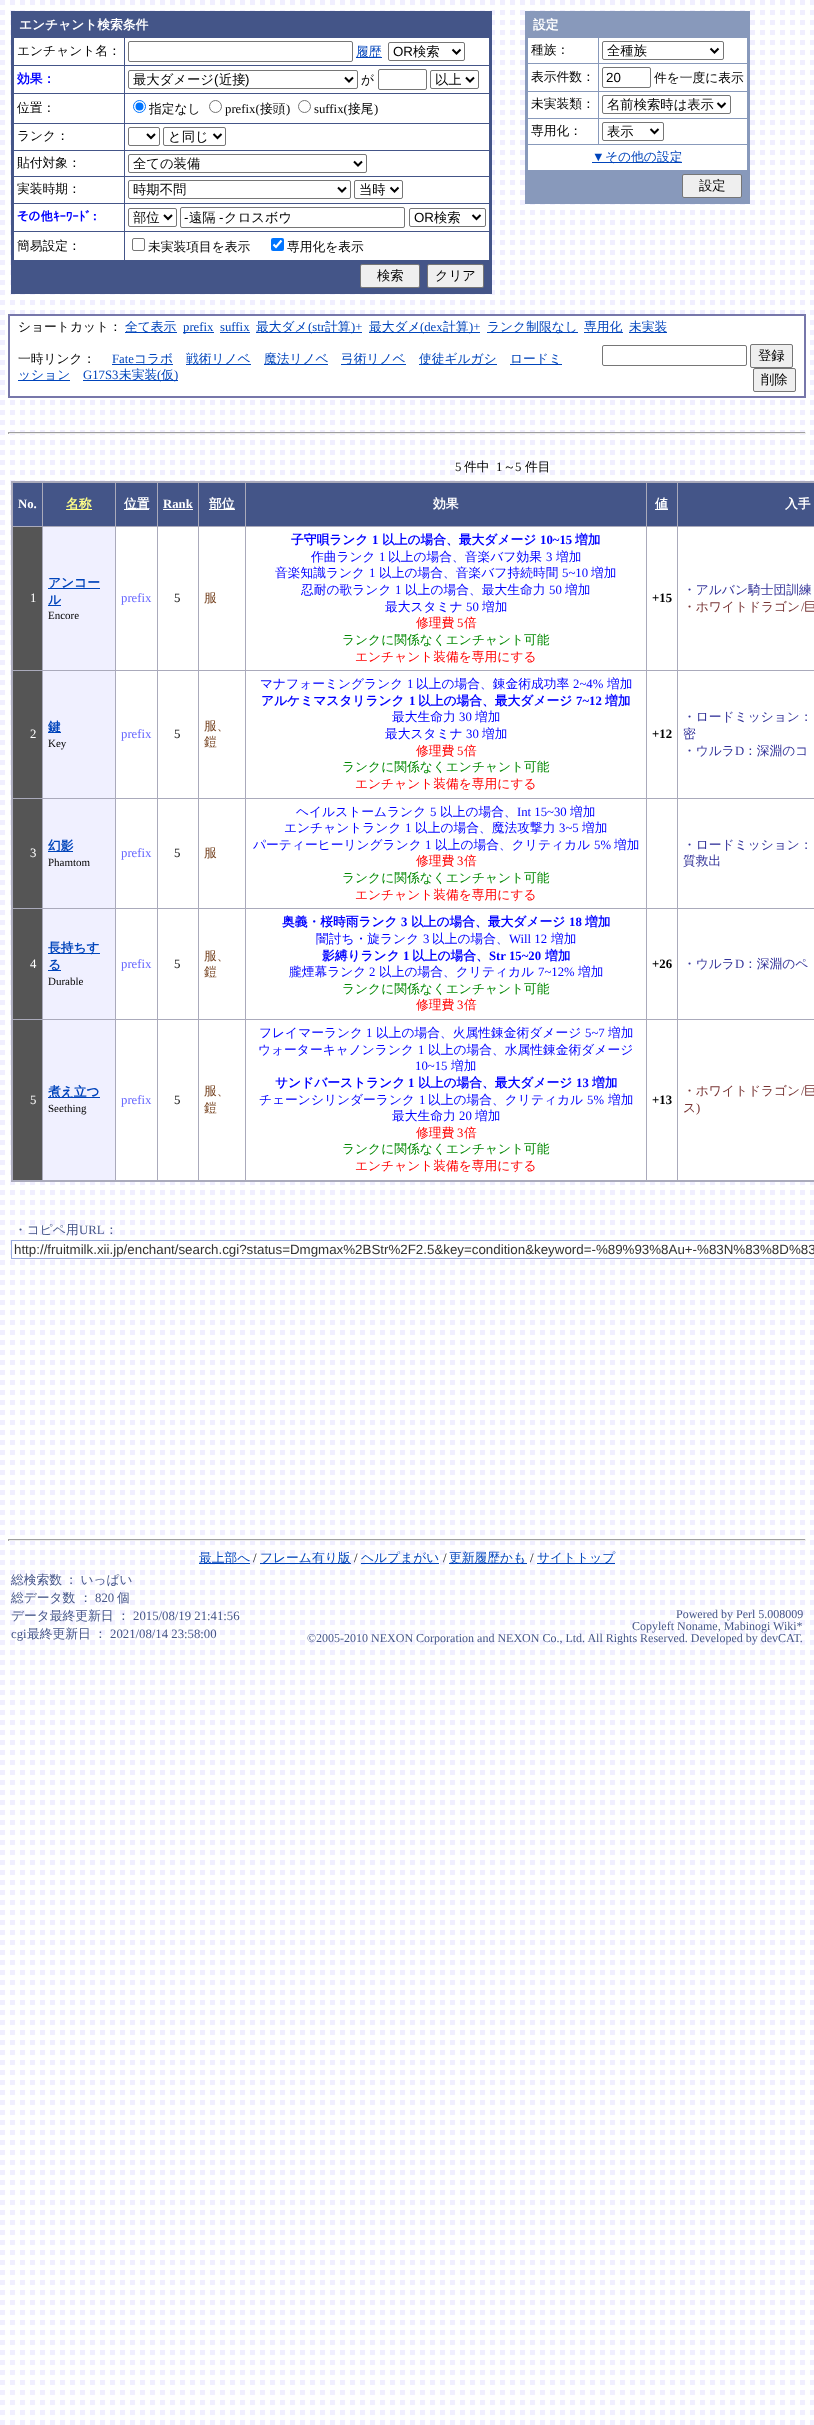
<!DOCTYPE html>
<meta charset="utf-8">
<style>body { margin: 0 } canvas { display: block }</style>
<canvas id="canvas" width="814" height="2425"></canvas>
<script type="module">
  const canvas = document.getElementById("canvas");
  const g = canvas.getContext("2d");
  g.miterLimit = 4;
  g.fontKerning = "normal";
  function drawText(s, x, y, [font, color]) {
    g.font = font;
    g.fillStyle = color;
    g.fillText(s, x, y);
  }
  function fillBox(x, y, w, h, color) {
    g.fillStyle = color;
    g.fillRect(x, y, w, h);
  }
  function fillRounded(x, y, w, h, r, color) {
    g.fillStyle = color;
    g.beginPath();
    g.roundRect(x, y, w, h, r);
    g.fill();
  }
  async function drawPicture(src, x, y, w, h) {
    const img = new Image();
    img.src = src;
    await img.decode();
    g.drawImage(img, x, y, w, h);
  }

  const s1 = ["bold 12.75px WenQuanYi Zen Hei", "#FFFFFF"];
  const s2 = ["500 12.75px WenQuanYi Zen Hei", "#000000"];
  const s3 = ["500 12.75px WenQuanYi Zen Hei", "#0044BB"];
  const s4 = ["13.33px Liberation Sans", "#000000"];
  const s5 = ["500 13.33px WenQuanYi Zen Hei", "#000000"];
  const s6 = ["bold 12.75px WenQuanYi Zen Hei", "#0000FF"];
  const s7 = ["12.75px Liberation Serif", "#000000"];
  const s8 = ["bold 12.75px IPAPGothic", "#0000FF"];
  const s9 = ["12.75px Liberation Serif", "#0044BB"];
  const s10 = ["bold 12.75px Liberation Serif", "#FFFFFF"];
  const s11 = ["bold 12.75px WenQuanYi Zen Hei", "#FFFF88"];
  const s12 = ["12.75px Liberation Serif", "#FFFFFF"];
  const s13 = ["bold 12.75px WenQuanYi Zen Hei", "#0044BB"];
  const s14 = ["11px Liberation Serif", "#000000"];
  const s15 = ["12.75px Liberation Serif", "#6666FF"];
  const s16 = ["500 12.75px WenQuanYi Zen Hei", "#774422"];
  const s17 = ["bold 12.75px Liberation Serif", "#0000FF"];
  const s18 = ["500 12.75px WenQuanYi Zen Hei", "#0000FF"];
  const s19 = ["12.75px Liberation Serif", "#0000FF"];
  const s20 = ["500 12.75px WenQuanYi Zen Hei", "#FF0000"];
  const s21 = ["12.75px Liberation Serif", "#FF0000"];
  const s22 = ["500 12.75px WenQuanYi Zen Hei", "#008800"];
  const s23 = ["bold 12.75px Liberation Serif", "#000000"];
  const s24 = ["500 12.75px WenQuanYi Zen Hei", "#333399"];
  const s25 = ["500 12.75px WenQuanYi Zen Hei", "#773333"];
  const s26 = ["12.75px Liberation Serif", "#773333"];
  const s27 = ["12.75px Liberation Serif", "#333399"];
  const s28 = ["500 12.75px WenQuanYi Zen Hei", "#445588"];
  const s29 = ["12.75px Liberation Serif", "#445588"];
  const s30 = ["13.33px Liberation Sans", "#333333"];
  const s31 = ["12px Liberation Serif", "#445588"];

  fillBox(0, 0, 814, 2425, "#FFFFFF");
  await drawPicture("pic1.png", 0, 0, 814, 2425);
  fillBox(11, 11, 481, 283, "#445588");
  drawText("エンチャント検索条件", 19, 29, s1);
  fillBox(14, 38, 110, 27, "#FFFFFF");
  drawText("エンチャント名：", 17, 55, s2);
  fillBox(125, 38, 364, 27, "#FFFFFF");
  g.beginPath();
  g.roundRect(128.5, 41.5, 224, 20, 1.5);
  g.strokeStyle = "#767676";
  g.stroke();
  fillBox(356, 57, 26, 1, "#0044BB");
  drawText("履歴", 356, 56, s3);
  g.beginPath();
  g.roundRect(388.5, 42.5, 76, 18, 1.5);
  g.stroke();
  g.beginPath();
  g.moveTo(452.5, 49.5);
  g.lineTo(456.5, 53.5);
  g.lineTo(460.5, 49.5);
  g.strokeStyle = "#000000";
  g.lineWidth = 2;
  g.stroke();
  drawText("OR", 393, 56, s4);
  drawText("検索", 413, 56, s5);
  fillBox(14, 66, 110, 27, "#FFFFFF");
  drawText("効果：", 17, 83, s6);
  fillBox(125, 66, 364, 27, "#FFFFFF");
  g.beginPath();
  g.roundRect(128.5, 70.5, 229, 18, 1.5);
  g.strokeStyle = "#767676";
  g.lineWidth = 1;
  g.stroke();
  g.beginPath();
  g.moveTo(345, 77.5);
  g.lineTo(349, 81.5);
  g.lineTo(353, 77.5);
  g.strokeStyle = "#000000";
  g.lineWidth = 2;
  g.stroke();
  drawText("最大ダメージ", 133, 84, s5);
  drawText("(", 214, 84, s4);
  drawText("近接", 219, 84, s5);
  drawText(")", 245, 84, s4);
  drawText("が", 361, 84, s2);
  g.beginPath();
  g.roundRect(378.5, 69.5, 48, 20, 1.5);
  g.strokeStyle = "#767676";
  g.lineWidth = 1;
  g.stroke();
  g.beginPath();
  g.roundRect(430.5, 70.5, 48, 18, 1.5);
  g.stroke();
  g.beginPath();
  g.moveTo(466, 77.5);
  g.lineTo(470, 81.5);
  g.lineTo(474, 77.5);
  g.strokeStyle = "#000000";
  g.lineWidth = 2;
  g.stroke();
  drawText("以上", 435, 84, s5);
  fillBox(14, 94, 110, 29, "#FFFFFF");
  drawText("位置：", 17, 112, s2);
  fillBox(125, 94, 364, 29, "#FFFFFF");
  g.beginPath();
  g.arc(139.5, 106.5, 6, 0, Math.PI * 2);
  g.strokeStyle = "#0075FF";
  g.lineWidth = 1;
  g.stroke();
  g.fillStyle = "#0075FF";
  g.beginPath();
  g.arc(139.5, 106.5, 4, 0, Math.PI * 2);
  g.fill();
  drawText("指定なし", 149, 113, s2);
  g.beginPath();
  g.arc(215.5, 106.5, 6, 0, Math.PI * 2);
  g.strokeStyle = "#767676";
  g.stroke();
  drawText("prefix(", 225, 113, s7);
  drawText("接頭", 260, 113, s2);
  drawText(")", 286, 113, s7);
  g.beginPath();
  g.arc(304.5, 106.5, 6, 0, Math.PI * 2);
  g.stroke();
  drawText("suffix(", 314, 113, s7);
  drawText("接尾", 348, 113, s2);
  drawText(")", 374, 113, s7);
  fillBox(14, 124, 110, 26, "#FFFFFF");
  drawText("ランク：", 17, 140, s2);
  fillBox(125, 124, 364, 26, "#FFFFFF");
  g.beginPath();
  g.roundRect(128.5, 127.5, 31, 18, 1.5);
  g.stroke();
  g.beginPath();
  g.moveTo(147, 134);
  g.lineTo(151, 138);
  g.lineTo(155, 134);
  g.strokeStyle = "#000000";
  g.lineWidth = 2;
  g.stroke();
  g.beginPath();
  g.roundRect(163.5, 127.5, 62, 18, 1.5);
  g.strokeStyle = "#767676";
  g.lineWidth = 1;
  g.stroke();
  g.beginPath();
  g.moveTo(213.5, 134);
  g.lineTo(217.5, 138);
  g.lineTo(221.5, 134);
  g.strokeStyle = "#000000";
  g.lineWidth = 2;
  g.stroke();
  drawText("と同じ", 168, 141, s5);
  fillBox(14, 151, 110, 25, "#FFFFFF");
  drawText("貼付対象：", 17, 167, s2);
  fillBox(125, 151, 364, 25, "#FFFFFF");
  g.beginPath();
  g.roundRect(128.5, 154.5, 238, 18, 1.5);
  g.strokeStyle = "#767676";
  g.lineWidth = 1;
  g.stroke();
  g.beginPath();
  g.moveTo(354, 161.5);
  g.lineTo(358, 165.5);
  g.lineTo(362, 161.5);
  g.strokeStyle = "#000000";
  g.lineWidth = 2;
  g.stroke();
  drawText("全ての装備", 133, 168, s5);
  fillBox(14, 177, 110, 26, "#FFFFFF");
  drawText("実装時期：", 17, 193, s2);
  fillBox(125, 177, 364, 26, "#FFFFFF");
  g.beginPath();
  g.roundRect(128.5, 180.5, 222, 18, 1.5);
  g.strokeStyle = "#767676";
  g.lineWidth = 1;
  g.stroke();
  g.beginPath();
  g.moveTo(338, 187.5);
  g.lineTo(342, 191.5);
  g.lineTo(346, 187.5);
  g.strokeStyle = "#000000";
  g.lineWidth = 2;
  g.stroke();
  drawText("時期不問", 133, 194, s5);
  g.beginPath();
  g.roundRect(354.5, 180.5, 48, 18, 1.5);
  g.strokeStyle = "#767676";
  g.lineWidth = 1;
  g.stroke();
  g.beginPath();
  g.moveTo(390.5, 187.5);
  g.lineTo(394.5, 191.5);
  g.lineTo(398.5, 187.5);
  g.strokeStyle = "#000000";
  g.lineWidth = 2;
  g.stroke();
  drawText("当時", 359, 194, s5);
  fillBox(14, 204, 110, 27, "#FFFFFF");
  drawText("その他ｷｰﾜｰﾄﾞ：", 17, 221, s8);
  fillBox(125, 204, 364, 27, "#FFFFFF");
  g.beginPath();
  g.roundRect(128.5, 208.5, 48, 18, 1.5);
  g.strokeStyle = "#767676";
  g.lineWidth = 1;
  g.stroke();
  g.beginPath();
  g.moveTo(164, 215);
  g.lineTo(168, 219);
  g.lineTo(172, 215);
  g.strokeStyle = "#000000";
  g.lineWidth = 2;
  g.stroke();
  drawText("部位", 133, 222, s5);
  g.beginPath();
  g.roundRect(180.5, 207.5, 224, 20, 1.5);
  g.strokeStyle = "#767676";
  g.lineWidth = 1;
  g.stroke();
  drawText("-", 184, 222, s4);
  drawText("遠隔", 189, 222, s5);
  drawText("-", 219, 222, s4);
  drawText("クロスボウ", 224, 222, s5);
  g.beginPath();
  g.roundRect(409.5, 208.5, 76, 18, 1.5);
  g.stroke();
  g.beginPath();
  g.moveTo(472.5, 215);
  g.lineTo(476.5, 219);
  g.lineTo(480.5, 215);
  g.strokeStyle = "#000000";
  g.lineWidth = 2;
  g.stroke();
  drawText("OR", 414, 222, s4);
  drawText("検索", 434, 222, s5);
  fillBox(14, 232, 110, 28, "#FFFFFF");
  drawText("簡易設定：", 17, 250, s2);
  fillBox(125, 232, 364, 28, "#FFFFFF");
  g.beginPath();
  g.roundRect(132.5, 238.5, 12, 12, 1.5);
  g.strokeStyle = "#767676";
  g.lineWidth = 1;
  g.stroke();
  drawText("未実装項目を表示", 148, 251, s2);
  fillRounded(271, 238, 13, 13, 2, "#0075FF");
  g.beginPath();
  g.moveTo(273.5, 244.5);
  g.lineTo(276, 247);
  g.lineTo(281.5, 240.5);
  g.strokeStyle = "#FFFFFF";
  g.lineWidth = 2.1;
  g.stroke();
  drawText("専用化を表示", 287, 251, s2);
  g.fillStyle = "#EFEFEF";
  g.beginPath();
  g.roundRect(360.5, 264.5, 59, 23, 1.5);
  g.fill();
  g.strokeStyle = "#767676";
  g.lineWidth = 1;
  g.stroke();
  drawText("検索", 377, 280, s5);
  g.fillStyle = "#EFEFEF";
  g.beginPath();
  g.roundRect(427.5, 264.5, 56, 23, 1.5);
  g.fill();
  g.stroke();
  drawText("クリア", 435, 280, s5);
  fillBox(525, 11, 225, 193, "#8899BB");
  drawText("設定", 533, 29, s1);
  fillBox(528, 38, 70, 25, "#FFFFFF");
  drawText("種族：", 531, 54, s2);
  fillBox(599, 38, 148, 25, "#FFFFFF");
  g.beginPath();
  g.roundRect(602.5, 41.5, 121, 18, 1.5);
  g.stroke();
  g.beginPath();
  g.moveTo(710.5, 48.5);
  g.lineTo(714.5, 52.5);
  g.lineTo(718.5, 48.5);
  g.strokeStyle = "#000000";
  g.lineWidth = 2;
  g.stroke();
  drawText("全種族", 607, 55, s5);
  fillBox(528, 64, 70, 27, "#FFFFFF");
  drawText("表示件数：", 531, 81, s2);
  fillBox(599, 64, 148, 27, "#FFFFFF");
  g.beginPath();
  g.roundRect(602.5, 67.5, 48, 20, 1.5);
  g.strokeStyle = "#767676";
  g.lineWidth = 1;
  g.stroke();
  drawText("20", 606, 82, s4);
  drawText("件を一度に表示", 654, 82, s2);
  fillBox(528, 92, 70, 26, "#FFFFFF");
  drawText("未実装類：", 531, 108, s2);
  fillBox(599, 92, 148, 26, "#FFFFFF");
  g.beginPath();
  g.roundRect(602.5, 95.5, 128, 18, 1.5);
  g.stroke();
  g.beginPath();
  g.moveTo(717.5, 103);
  g.lineTo(721.5, 107);
  g.lineTo(725.5, 103);
  g.strokeStyle = "#000000";
  g.lineWidth = 2;
  g.stroke();
  drawText("名前検索時は表示", 607, 109, s5);
  fillBox(528, 119, 70, 25, "#FFFFFF");
  drawText("専用化：", 531, 135, s2);
  fillBox(599, 119, 148, 25, "#FFFFFF");
  g.beginPath();
  g.roundRect(602.5, 122.5, 61, 18, 1.5);
  g.strokeStyle = "#767676";
  g.lineWidth = 1;
  g.stroke();
  g.beginPath();
  g.moveTo(650.5, 129);
  g.lineTo(654.5, 133);
  g.lineTo(658.5, 129);
  g.strokeStyle = "#000000";
  g.lineWidth = 2;
  g.stroke();
  drawText("表示", 607, 136, s5);
  fillBox(528, 145, 219, 25, "#FFFFFF");
  drawText("▼", 592, 161, s9);
  fillBox(592, 162, 90, 1, "#0044BB");
  drawText("その他の設定", 605, 161, s3);
  g.fillStyle = "#EFEFEF";
  g.beginPath();
  g.roundRect(682.5, 174.5, 59, 23, 1.5);
  g.fill();
  g.strokeStyle = "#767676";
  g.lineWidth = 1;
  g.stroke();
  drawText("設定", 699, 190, s5);
  fillBox(8, 314, 798, 2, "#7777AA");
  fillBox(804, 314, 2, 84, "#7777AA");
  fillBox(8, 396, 798, 2, "#7777AA");
  fillBox(8, 314, 2, 84, "#7777AA");
  fillBox(10, 320, 794, 15, "#FFFFFF");
  drawText("ショートカット：", 18, 331, s2);
  fillBox(125, 332, 52, 1, "#0044BB");
  drawText("全て表示", 125, 331, s3);
  fillBox(183, 332, 31, 1, "#0044BB");
  drawText("prefix", 183, 331, s9);
  drawText("suffix", 220, 331, s9);
  fillBox(220, 332, 30, 1, "#0044BB");
  fillBox(256, 332, 106, 1, "#0044BB");
  drawText("最大ダメ", 256, 331, s3);
  drawText("(str", 308, 331, s9);
  drawText("計算", 325, 331, s3);
  drawText(")+", 351, 331, s9);
  fillBox(369, 332, 111, 1, "#0044BB");
  drawText("最大ダメ", 369, 331, s3);
  drawText("(dex", 420, 331, s9);
  drawText("計算", 443, 331, s3);
  drawText(")+", 469, 331, s9);
  fillBox(487, 332, 91, 1, "#0044BB");
  drawText("ランク制限なし", 487, 331, s3);
  fillBox(584, 332, 39, 1, "#0044BB");
  drawText("専用化", 584, 331, s3);
  fillBox(629, 332, 38, 1, "#0044BB");
  drawText("未実装", 629, 331, s3);
  fillBox(10, 340, 794, 55, "#FFFFFF");
  drawText("一時リンク：", 18, 363, s2);
  drawText("Fate", 112, 363, s9);
  fillBox(112, 364, 61, 1, "#0044BB");
  drawText("コラボ", 134, 363, s3);
  fillBox(186, 364, 65, 1, "#0044BB");
  drawText("戦術リノベ", 186, 363, s3);
  fillBox(264, 364, 64, 1, "#0044BB");
  drawText("魔法リノベ", 264, 363, s3);
  fillBox(341, 364, 65, 1, "#0044BB");
  drawText("弓術リノベ", 341, 363, s3);
  fillBox(419, 364, 78, 1, "#0044BB");
  drawText("使徒ギルガシ", 419, 363, s3);
  fillBox(510, 364, 52, 1, "#0044BB");
  drawText("ロードミ", 510, 363, s3);
  fillBox(18, 380, 52, 1, "#0044BB");
  drawText("ッション", 18, 379, s3);
  drawText("G17S3", 83, 379, s9);
  fillBox(83, 380, 95, 1, "#0044BB");
  drawText("未実装", 119, 379, s3);
  drawText("(", 157, 379, s9);
  drawText("仮", 161, 379, s3);
  drawText(")", 174, 379, s9);
  g.beginPath();
  g.roundRect(602.5, 345.5, 144, 20, 1.5);
  g.stroke();
  g.fillStyle = "#EFEFEF";
  g.beginPath();
  g.roundRect(750.5, 344.5, 42, 23, 1.5);
  g.fill();
  g.stroke();
  drawText("登録", 758, 360, s5);
  g.fillStyle = "#EFEFEF";
  g.beginPath();
  g.roundRect(753.5, 368.5, 42, 23, 1.5);
  g.fill();
  g.stroke();
  drawText("削除", 761, 384, s5);
  fillBox(8, 432, 798, 1, "#9F9F9F");
  fillBox(805, 432, 1, 2, "#EEEEEE");
  fillBox(8, 433, 798, 1, "#EEEEEE");
  fillBox(8, 432, 1, 2, "#9F9F9F");
  drawText("5", 455, 471, s7);
  drawText("件中", 464, 471, s2);
  drawText("1", 496, 471, s7);
  drawText("～", 503, 471, s2);
  drawText("5", 515, 471, s7);
  drawText("件目", 525, 471, s2);
  fillBox(120, 530, 694, 645, "#FFFFFF");
  fillBox(677, 526, 137, 1, "#AAAABB");
  fillBox(677, 670, 137, 1, "#AAAABB");
  fillBox(677, 798, 137, 1, "#AAAABB");
  fillBox(677, 908, 137, 1, "#AAAABB");
  fillBox(677, 1019, 137, 1, "#AAAABB");
  fillBox(677, 1019, 1, 162, "#AAAABB");
  fillBox(646, 1019, 32, 1, "#AAAABB");
  fillBox(677, 908, 1, 112, "#AAAABB");
  fillBox(646, 908, 32, 1, "#AAAABB");
  fillBox(677, 798, 1, 111, "#AAAABB");
  fillBox(646, 798, 32, 1, "#AAAABB");
  fillBox(677, 670, 1, 129, "#AAAABB");
  fillBox(646, 670, 32, 1, "#AAAABB");
  fillBox(677, 526, 1, 145, "#AAAABB");
  fillBox(646, 526, 32, 1, "#AAAABB");
  fillBox(646, 1019, 1, 162, "#AAAABB");
  fillBox(245, 1019, 402, 1, "#AAAABB");
  fillBox(646, 908, 1, 112, "#AAAABB");
  fillBox(245, 908, 402, 1, "#AAAABB");
  fillBox(646, 798, 1, 111, "#AAAABB");
  fillBox(245, 798, 402, 1, "#AAAABB");
  fillBox(646, 670, 1, 129, "#AAAABB");
  fillBox(245, 670, 402, 1, "#AAAABB");
  fillBox(646, 526, 1, 145, "#AAAABB");
  fillBox(245, 526, 402, 1, "#AAAABB");
  fillBox(245, 1019, 1, 162, "#AAAABB");
  fillBox(198, 1019, 48, 1, "#AAAABB");
  fillBox(245, 908, 1, 112, "#AAAABB");
  fillBox(198, 908, 48, 1, "#AAAABB");
  fillBox(245, 798, 1, 111, "#AAAABB");
  fillBox(198, 798, 48, 1, "#AAAABB");
  fillBox(245, 670, 1, 129, "#AAAABB");
  fillBox(198, 670, 48, 1, "#AAAABB");
  fillBox(245, 526, 1, 145, "#AAAABB");
  fillBox(198, 526, 48, 1, "#AAAABB");
  fillBox(198, 1019, 1, 162, "#AAAABB");
  fillBox(157, 1019, 42, 1, "#AAAABB");
  fillBox(198, 908, 1, 112, "#AAAABB");
  fillBox(157, 908, 42, 1, "#AAAABB");
  fillBox(198, 798, 1, 111, "#AAAABB");
  fillBox(157, 798, 42, 1, "#AAAABB");
  fillBox(198, 670, 1, 129, "#AAAABB");
  fillBox(157, 670, 42, 1, "#AAAABB");
  fillBox(198, 526, 1, 145, "#AAAABB");
  fillBox(157, 526, 42, 1, "#AAAABB");
  fillBox(157, 1019, 1, 162, "#AAAABB");
  fillBox(115, 1019, 43, 1, "#AAAABB");
  fillBox(157, 908, 1, 112, "#AAAABB");
  fillBox(115, 908, 43, 1, "#AAAABB");
  fillBox(157, 798, 1, 111, "#AAAABB");
  fillBox(115, 798, 43, 1, "#AAAABB");
  fillBox(157, 670, 1, 129, "#AAAABB");
  fillBox(115, 670, 43, 1, "#AAAABB");
  fillBox(157, 526, 1, 145, "#AAAABB");
  fillBox(115, 526, 43, 1, "#AAAABB");
  fillBox(115, 1019, 1, 162, "#AAAABB");
  fillBox(42, 1019, 74, 1, "#AAAABB");
  fillBox(115, 908, 1, 112, "#AAAABB");
  fillBox(42, 908, 74, 1, "#AAAABB");
  fillBox(115, 798, 1, 111, "#AAAABB");
  fillBox(42, 798, 74, 1, "#AAAABB");
  fillBox(115, 670, 1, 129, "#AAAABB");
  fillBox(42, 670, 74, 1, "#AAAABB");
  fillBox(115, 526, 1, 145, "#AAAABB");
  fillBox(42, 526, 74, 1, "#AAAABB");
  fillBox(42, 1019, 1, 162, "#AAAABB");
  fillBox(12, 1019, 31, 1, "#AAAABB");
  fillBox(42, 908, 1, 112, "#AAAABB");
  fillBox(12, 908, 31, 1, "#AAAABB");
  fillBox(42, 798, 1, 111, "#AAAABB");
  fillBox(12, 798, 31, 1, "#AAAABB");
  fillBox(42, 670, 1, 129, "#AAAABB");
  fillBox(12, 670, 31, 1, "#AAAABB");
  fillBox(42, 526, 1, 145, "#AAAABB");
  fillBox(12, 526, 31, 1, "#AAAABB");
  fillBox(42, 481, 1, 46, "#AAAABB");
  fillBox(115, 481, 1, 46, "#AAAABB");
  fillBox(157, 481, 1, 46, "#AAAABB");
  fillBox(198, 481, 1, 46, "#AAAABB");
  fillBox(245, 481, 1, 46, "#AAAABB");
  fillBox(646, 481, 1, 46, "#AAAABB");
  fillBox(677, 481, 1, 46, "#AAAABB");
  fillBox(11, 481, 803, 2, "#AAAABB");
  fillBox(11, 1180, 803, 2, "#AAAABB");
  fillBox(11, 481, 2, 701, "#AAAABB");
  fillBox(13, 483, 29, 43, "#445588");
  drawText("No.", 18, 508, s10);
  fillBox(43, 483, 72, 43, "#445588");
  fillBox(66, 509, 26, 1, "#FFFF88");
  drawText("名称", 66, 508, s11);
  fillBox(116, 483, 41, 43, "#445588");
  fillBox(124, 509, 25, 1, "#FFFFFF");
  drawText("位置", 124, 508, s1);
  fillBox(158, 483, 40, 43, "#445588");
  drawText("Rank", 163, 508, s10);
  fillBox(163, 509, 30, 1, "#FFFFFF");
  fillBox(199, 483, 46, 43, "#445588");
  fillBox(209, 509, 26, 1, "#FFFFFF");
  drawText("部位", 209, 508, s1);
  fillBox(246, 483, 400, 43, "#445588");
  drawText("効果", 433, 508, s1);
  fillBox(647, 483, 30, 43, "#445588");
  fillBox(655, 509, 13, 1, "#FFFFFF");
  drawText("値", 655, 508, s1);
  fillBox(678, 483, 136, 43, "#445588");
  drawText("入手", 785, 508, s1);
  fillBox(13, 527, 29, 143, "#555555");
  drawText("1", 30, 602, s12);
  fillBox(43, 527, 72, 143, "#F0F0FF");
  fillBox(48, 588, 52, 1, "#0044BB");
  drawText("アンコー", 48, 587, s13);
  drawText("ル", 48, 604, s13);
  fillBox(48, 605, 13, 1, "#0044BB");
  drawText("Encore", 48, 619, s14);
  drawText("prefix", 121, 602, s15);
  drawText("5", 174, 602, s7);
  drawText("服", 204, 602, s16);
  drawText("子守唄ランク", 291, 544, s6);
  drawText("1", 372, 544, s17);
  drawText("以上の場合、最大ダメージ", 382, 544, s6);
  drawText("10~15", 540, 544, s17);
  drawText("増加", 575, 544, s6);
  drawText("作曲ランク", 311, 561, s18);
  drawText("1", 379, 561, s19);
  drawText("以上の場合、音楽バフ効果", 388, 561, s18);
  drawText("3", 546, 561, s19);
  drawText("増加", 556, 561, s18);
  drawText("音楽知識ランク", 275, 577, s18);
  drawText("1", 369, 577, s19);
  drawText("以上の場合、音楽バフ持続時間", 379, 577, s18);
  drawText("5~10", 562, 577, s19);
  drawText("増加", 591, 577, s18);
  drawText("忍耐の歌ランク", 301, 594, s18);
  drawText("1", 395, 594, s19);
  drawText("以上の場合、最大生命力", 405, 594, s18);
  drawText("50", 549, 594, s19);
  drawText("増加", 565, 594, s18);
  drawText("最大スタミナ", 385, 611, s18);
  drawText("50", 466, 611, s19);
  drawText("増加", 482, 611, s18);
  drawText("修理費", 416, 627, s20);
  drawText("5", 457, 627, s21);
  drawText("倍", 464, 627, s20);
  drawText("ランクに関係なくエンチャント可能", 342, 644, s22);
  drawText("エンチャント装備を専用にする", 355, 661, s20);
  drawText("+15", 652, 602, s23);
  g.wordSpacing = "-1px";
  drawText("・アルバン騎士団訓練", 683, 594, s24);
  g.wordSpacing = "0px";
  drawText("・ホワイトドラゴン 巨", 683, 611, s25);
  drawText("/", 801, 611, s26);
  fillBox(13, 671, 29, 127, "#555555");
  drawText("2", 30, 738, s12);
  fillBox(43, 671, 72, 127, "#F0F0FF");
  fillBox(48, 732, 13, 1, "#0044BB");
  drawText("鍵", 48, 731, s13);
  drawText("Key", 48, 747, s14);
  drawText("prefix", 121, 738, s15);
  drawText("5", 174, 738, s7);
  drawText("服、", 204, 730, s16);
  drawText("鎧", 204, 746, s16);
  drawText("マナフォーミングランク", 260, 688, s18);
  drawText("1", 407, 688, s19);
  drawText("以上の場合、錬金術成功率", 416, 688, s18);
  drawText("2~4%", 573, 688, s19);
  drawText("増加", 607, 688, s18);
  drawText("アルケミマスタリランク", 261, 705, s6);
  drawText("1", 409, 705, s17);
  drawText("以上の場合、最大ダメージ", 418, 705, s6);
  drawText("7~12", 576, 705, s17);
  drawText("増加", 605, 705, s6);
  drawText("最大生命力", 392, 721, s18);
  drawText("30", 459, 721, s19);
  drawText("増加", 475, 721, s18);
  drawText("最大スタミナ", 385, 738, s18);
  drawText("30", 466, 738, s19);
  drawText("増加", 482, 738, s18);
  drawText("修理費", 416, 755, s20);
  drawText("5", 457, 755, s21);
  drawText("倍", 464, 755, s20);
  drawText("ランクに関係なくエンチャント可能", 342, 771, s22);
  drawText("エンチャント装備を専用にする", 355, 788, s20);
  drawText("+12", 652, 738, s23);
  drawText("・ロードミッション：", 683, 721, s24);
  drawText("密", 683, 738, s24);
  drawText("・ウルラ", 683, 755, s24);
  drawText("D", 735, 755, s27);
  drawText("：深淵のコ", 744, 755, s24);
  fillBox(13, 799, 29, 109, "#555555");
  drawText("3", 30, 857, s12);
  fillBox(43, 799, 72, 109, "#F0F0FF");
  fillBox(48, 851, 25, 1, "#0044BB");
  drawText("幻影", 48, 850, s13);
  drawText("Phamtom", 48, 866, s14);
  drawText("prefix", 121, 857, s15);
  drawText("5", 174, 857, s7);
  drawText("服", 204, 857, s16);
  drawText("ヘイルストームランク", 296, 816, s18);
  drawText("5", 430, 816, s19);
  drawText("以上の場合、", 440, 816, s18);
  drawText("Int 15~30", 517, 816, s19);
  drawText("増加", 570, 816, s18);
  drawText("エンチャントランク", 284, 832, s18);
  drawText("1", 405, 832, s19);
  drawText("以上の場合、魔法攻撃力", 415, 832, s18);
  drawText("3~5", 559, 832, s19);
  drawText("増加", 582, 832, s18);
  drawText("パーティーヒーリングランク", 253, 849, s18);
  drawText("1", 425, 849, s19);
  drawText("以上の場合、クリティカル", 435, 849, s18);
  drawText("5%", 594, 849, s19);
  drawText("増加", 614, 849, s18);
  drawText("修理費", 416, 865, s20);
  drawText("3", 457, 865, s21);
  drawText("倍", 464, 865, s20);
  drawText("ランクに関係なくエンチャント可能", 342, 882, s22);
  drawText("エンチャント装備を専用にする", 355, 899, s20);
  drawText("・ロードミッション：", 683, 849, s24);
  drawText("質救出", 683, 865, s24);
  fillBox(13, 909, 29, 110, "#555555");
  drawText("4", 30, 968, s12);
  fillBox(43, 909, 72, 110, "#F0F0FF");
  fillBox(48, 953, 52, 1, "#0044BB");
  drawText("長持ちす", 48, 952, s13);
  fillBox(48, 970, 13, 1, "#0044BB");
  drawText("る", 48, 969, s13);
  drawText("Durable", 48, 985, s14);
  drawText("prefix", 121, 968, s15);
  drawText("5", 174, 968, s7);
  drawText("服、", 204, 960, s16);
  drawText("鎧", 204, 976, s16);
  drawText("奥義・桜時雨ランク", 282, 926, s6);
  drawText("3", 401, 926, s17);
  drawText("以上の場合、最大ダメージ", 411, 926, s6);
  drawText("18", 569, 926, s17);
  drawText("増加", 585, 926, s6);
  drawText("闇討ち・旋ランク", 316, 943, s18);
  drawText("3", 423, 943, s19);
  drawText("以上の場合、", 432, 943, s18);
  drawText("Will 12", 509, 943, s19);
  drawText("増加", 551, 943, s18);
  drawText("影縛りランク", 322, 960, s6);
  drawText("1", 403, 960, s17);
  drawText("以上の場合、", 412, 960, s6);
  drawText("Str 15~20", 489, 960, s17);
  drawText("増加", 545, 960, s6);
  drawText("朧煙幕ランク", 289, 976, s18);
  drawText("2", 369, 976, s19);
  drawText("以上の場合、クリティカル", 379, 976, s18);
  drawText("7~12%", 538, 976, s19);
  drawText("増加", 578, 976, s18);
  drawText("ランクに関係なくエンチャント可能", 342, 993, s22);
  drawText("修理費", 416, 1009, s20);
  drawText("3", 457, 1009, s21);
  drawText("倍", 464, 1009, s20);
  drawText("+26", 652, 968, s23);
  drawText("・ウルラ", 683, 968, s24);
  drawText("D", 735, 968, s27);
  drawText("：深淵のペ", 744, 968, s24);
  fillBox(13, 1020, 29, 160, "#555555");
  drawText("5", 30, 1104, s12);
  fillBox(43, 1020, 72, 160, "#F0F0FF");
  fillBox(48, 1097, 52, 1, "#0044BB");
  drawText("煮え立つ", 48, 1096, s13);
  drawText("Seething", 48, 1112, s14);
  drawText("prefix", 121, 1104, s15);
  drawText("5", 174, 1104, s7);
  drawText("服、", 204, 1095, s16);
  drawText("鎧", 204, 1112, s16);
  drawText("フレイマーランク", 259, 1037, s18);
  drawText("1", 366, 1037, s19);
  drawText("以上の場合、火属性錬金術ダメージ", 376, 1037, s18);
  drawText("5~7", 585, 1037, s19);
  drawText("増加", 608, 1037, s18);
  drawText("ウォーターキャノンランク", 258, 1054, s18);
  drawText("1", 418, 1054, s19);
  drawText("以上の場合、水属性錬金術ダメージ", 428, 1054, s18);
  drawText("10~15", 415, 1070, s19);
  drawText("増加", 451, 1070, s18);
  drawText("サンドバーストランク", 275, 1087, s6);
  drawText("1", 408, 1087, s17);
  drawText("以上の場合、最大ダメージ", 418, 1087, s6);
  drawText("13", 576, 1087, s17);
  drawText("増加", 592, 1087, s6);
  drawText("チェーンシリンダーランク", 259, 1104, s18);
  drawText("1", 419, 1104, s19);
  drawText("以上の場合、クリティカル", 428, 1104, s18);
  drawText("5%", 587, 1104, s19);
  drawText("増加", 608, 1104, s18);
  drawText("最大生命力", 392, 1120, s18);
  drawText("20", 459, 1120, s19);
  drawText("増加", 475, 1120, s18);
  drawText("修理費", 416, 1137, s20);
  drawText("3", 457, 1137, s21);
  drawText("倍", 464, 1137, s20);
  drawText("ランクに関係なくエンチャント可能", 342, 1153, s22);
  drawText("エンチャント装備を専用にする", 355, 1170, s20);
  drawText("+13", 652, 1104, s23);
  drawText("・ホワイトドラゴン 巨", 683, 1095, s25);
  drawText("/", 801, 1095, s26);
  drawText("ス", 683, 1112, s25);
  drawText(")", 696, 1112, s26);
  drawText("・コピペ用", 14, 1234, s28);
  drawText("URL", 79, 1234, s29);
  drawText("：", 105, 1234, s28);
  fillBox(12, 1241, 802, 14, "#FFFFFF");
  g.strokeStyle = "#99AADD";
  g.strokeRect(11.5, 1240.5, 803, 18);
  drawText("http://fruitmilk.xii.jp/enchant/search.cgi?status=Dmgmax%2BStr%2F2.5&key=condition&keyword=-%89%93%8Au+-%83N%83%8D%83", 14, 1254, s30);
  fillBox(8, 1539, 798, 1, "#9F9F9F");
  fillBox(805, 1539, 1, 2, "#EEEEEE");
  fillBox(8, 1540, 798, 1, "#EEEEEE");
  fillBox(8, 1539, 1, 2, "#9F9F9F");
  fillBox(199, 1563, 51, 1, "#0044BB");
  drawText("最上部へ", 199, 1562, s3);
  drawText("/", 253, 1562, s7);
  fillBox(260, 1563, 91, 1, "#0044BB");
  drawText("フレーム有り版", 260, 1562, s3);
  drawText("/", 354, 1562, s7);
  fillBox(361, 1563, 78, 1, "#0044BB");
  drawText("ヘルプまがい", 361, 1562, s3);
  drawText("/", 443, 1562, s7);
  fillBox(449, 1563, 78, 1, "#0044BB");
  drawText("更新履歴かも", 449, 1562, s3);
  drawText("/", 530, 1562, s7);
  fillBox(537, 1563, 78, 1, "#0044BB");
  drawText("サイトトップ", 537, 1562, s3);
  g.wordSpacing = "-1px";
  drawText("総検索数 ： いっぱい", 11, 1584, s28);
  g.wordSpacing = "0px";
  drawText("総データ数 ：", 11, 1602, s28);
  drawText("820", 95, 1602, s29);
  drawText("個", 117, 1602, s28);
  drawText("データ最終更新日", 11, 1620, s28);
  drawText("：", 117, 1620, s28);
  drawText("2015/08/19 21:41:56", 133, 1620, s29);
  drawText("cgi", 11, 1638, s29);
  drawText("最終更新日", 27, 1638, s28);
  drawText("：", 94, 1638, s28);
  drawText("2021/08/14 23:58:00", 110, 1638, s29);
  drawText("Powered by Perl 5.008009", 676, 1618, s31);
  drawText("Copyleft Noname, Mabinogi Wiki*", 632, 1630, s31);
  drawText("©2005-2010 NEXON Corporation and NEXON Co., Ltd. All Rights Reserved. Developed by devCAT.", 307, 1642, s31);
</script>
